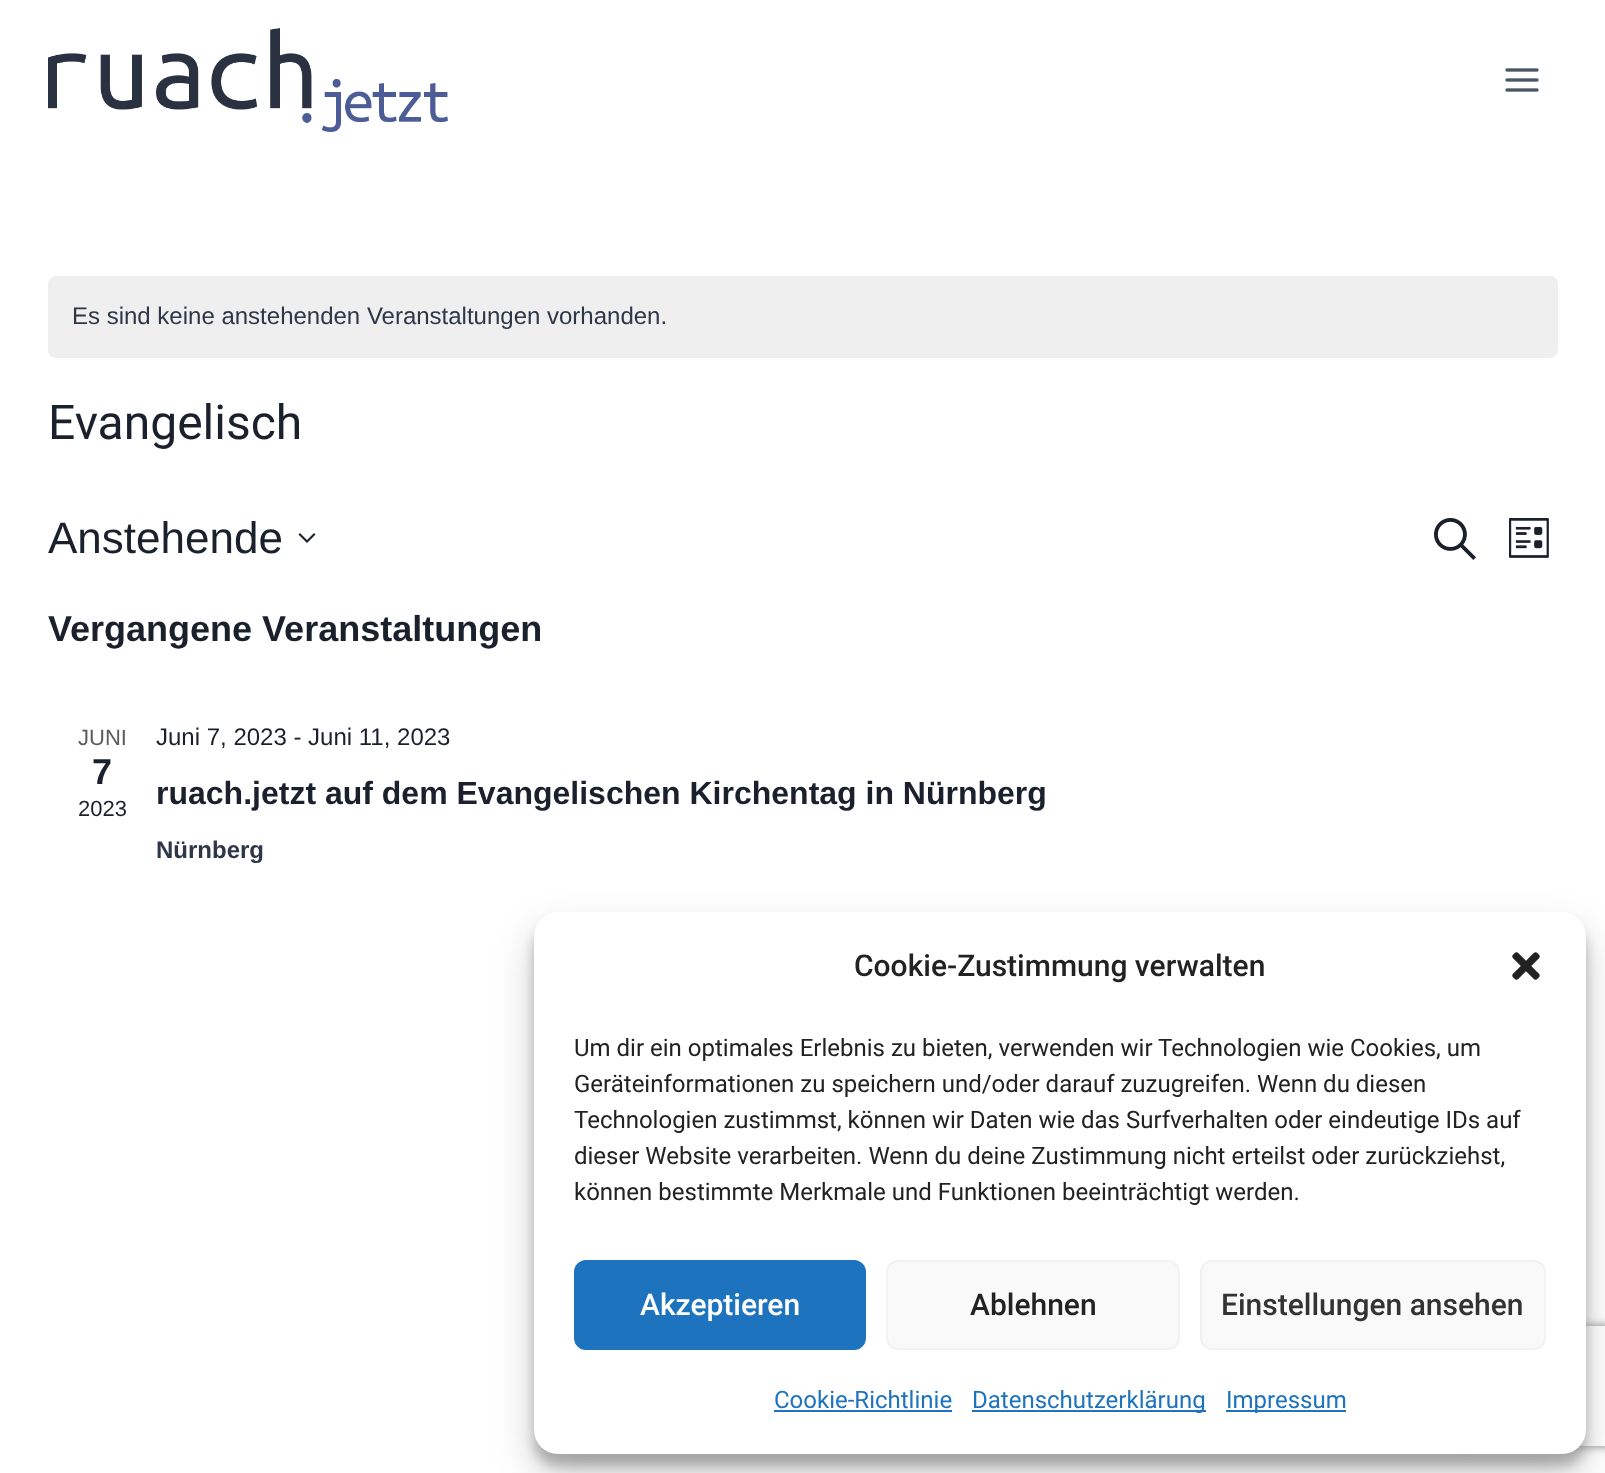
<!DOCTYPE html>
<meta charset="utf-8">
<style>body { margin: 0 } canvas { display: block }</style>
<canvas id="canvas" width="1605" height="1473"></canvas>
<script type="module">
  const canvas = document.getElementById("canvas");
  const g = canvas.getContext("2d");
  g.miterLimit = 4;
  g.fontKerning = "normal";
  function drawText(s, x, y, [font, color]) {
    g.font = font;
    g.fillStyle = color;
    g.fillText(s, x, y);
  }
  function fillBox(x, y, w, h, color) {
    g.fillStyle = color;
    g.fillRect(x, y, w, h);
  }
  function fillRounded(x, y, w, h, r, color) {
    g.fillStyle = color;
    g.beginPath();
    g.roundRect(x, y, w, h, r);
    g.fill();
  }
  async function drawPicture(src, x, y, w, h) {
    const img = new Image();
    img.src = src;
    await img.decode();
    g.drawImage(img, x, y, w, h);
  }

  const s1 = ["24px Liberation Sans", "#2D3748"];
  const s2 = ["48px Roboto", "#1A202C"];
  const s3 = ["44px Liberation Sans", "#1A202C"];
  const s4 = ["bold 36px Liberation Sans", "#1A202C"];
  const s5 = ["22px Liberation Sans", "#5D5D5D"];
  const s6 = ["22px Liberation Sans", "#1A202C"];
  const s7 = ["24px Liberation Sans", "#1A202C"];
  const s8 = ["bold 32px Liberation Sans", "#1A202C"];
  const s9 = ["bold 24px Liberation Sans", "#2D3748"];
  const s10 = ["500 30px Roboto", "#222222"];
  const s11 = ["24px Roboto", "#222222"];
  const s12 = ["500 30px Roboto", "#FFFFFF"];
  const s13 = ["500 30px Roboto", "#333333"];
  const s14 = ["24px Roboto", "#1E73BE"];

  fillBox(0, 0, 1605, 1473, "#FFFFFF");
  await drawPicture("pic1.png", 48, 28, 400, 104);
  await drawPicture("pic2.png", 1505, 68, 34, 24);
  fillRounded(48, 276, 1510, 82, 8, "#EFEFF0");
  drawText("Es sind keine anstehenden Veranstaltungen vorhanden.", 72, 324, s1);
  drawText("Evangelisch", 48, 439, s2);
  drawText("Anstehende", 48, 553, s3);
  g.beginPath();
  g.moveTo(300, 533);
  g.lineTo(307, 540);
  g.lineTo(314, 533);
  g.lineTo(315.5, 534.5);
  g.lineTo(307, 543);
  g.lineTo(298.5, 534.5);
  g.closePath();
  g.fill("evenodd");
  await drawPicture("pic3.png", 1434, 518, 42, 42);
  await drawPicture("pic4.png", 1509, 518, 40, 40);
  drawText("Vergangene Veranstaltungen", 48, 641, s4);
  drawText("JUNI", 78, 745, s5);
  drawText("7", 92, 784, s4);
  drawText("2023", 78, 816, s6);
  drawText("Juni 7, 2023 - Juni 11, 2023", 156, 745, s7);
  drawText("ruach.jetzt auf dem Evangelischen Kirchentag in Nürnberg", 156, 804, s8);
  drawText("Nürnberg", 156, 858, s9);
  g.fillStyle = "rgba(0, 0, 0, 0.23)";
  g.filter = "blur(6px)";
  g.beginPath();
  g.roundRect(534, 924, 1052, 542, 24);
  g.fill();
  g.filter = "none";
  g.fillStyle = "rgba(0, 0, 0, 0.19)";
  g.filter = "blur(20px)";
  g.beginPath();
  g.roundRect(534, 932, 1052, 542, 24);
  g.fill();
  g.filter = "none";
  g.save();
  g.beginPath();
  g.moveTo(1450, 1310);
  g.lineTo(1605, 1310);
  g.lineTo(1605, 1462);
  g.lineTo(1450, 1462);
  g.closePath();
  g.moveTo(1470, 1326);
  g.lineTo(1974, 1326);
  g.bezierCurveTo(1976, 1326, 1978, 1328, 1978, 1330);
  g.lineTo(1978, 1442);
  g.bezierCurveTo(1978, 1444, 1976, 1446, 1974, 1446);
  g.lineTo(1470, 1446);
  g.bezierCurveTo(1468, 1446, 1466, 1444, 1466, 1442);
  g.lineTo(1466, 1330);
  g.bezierCurveTo(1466, 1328, 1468, 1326, 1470, 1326);
  g.closePath();
  g.clip("evenodd");
  g.fillStyle = "#808080";
  g.filter = "blur(5px)";
  g.beginPath();
  g.roundRect(1466, 1326, 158, 120, 4);
  g.fill();
  g.filter = "none";
  g.restore();
  fillRounded(534, 912, 1052, 542, 24, "#FFFFFF");
  drawText("Cookie-Zustimmung verwalten", 854, 976, s10);
  await drawPicture("pic5.png", 1512, 952, 28, 28);
  drawText("Um dir ein optimales Erlebnis zu bieten, verwenden wir Technologien wie Cookies, um", 574, 1056, s11);
  drawText("Geräteinformationen zu speichern und/oder darauf zuzugreifen. Wenn du diesen", 574, 1092, s11);
  drawText("Technologien zustimmst, können wir Daten wie das Surfverhalten oder eindeutige IDs auf", 574, 1128, s11);
  drawText("dieser Website verarbeiten. Wenn du deine Zustimmung nicht erteilst oder zurückziehst,", 574, 1164, s11);
  drawText("können bestimmte Merkmale und Funktionen beeinträchtigt werden.", 574, 1200, s11);
  g.fillStyle = "#1E73BE";
  g.beginPath();
  g.roundRect(575, 1261, 290, 88, 11);
  g.fill();
  g.strokeStyle = "#1E73BE";
  g.lineWidth = 2;
  g.stroke();
  drawText("Akzeptieren", 640, 1315, s12);
  g.fillStyle = "#F9F9F9";
  g.beginPath();
  g.roundRect(887, 1261, 292, 88, 11);
  g.fill();
  g.strokeStyle = "#F2F2F2";
  g.stroke();
  drawText("Ablehnen", 970, 1315, s10);
  g.fillStyle = "#F9F9F9";
  g.beginPath();
  g.roundRect(1201, 1261, 344, 88, 11);
  g.fill();
  g.stroke();
  drawText("Einstellungen ansehen", 1221, 1315, s13);
  drawText("Cookie-Richtlinie", 774, 1408, s14);
  fillBox(774, 1410, 178, 2, "#1E73BE");
  fillBox(972, 1410, 234, 2, "#1E73BE");
  drawText("Datenschutzerklärung", 972, 1408, s14);
  fillBox(1226, 1410, 120, 2, "#1E73BE");
  drawText("Impressum", 1226, 1408, s14);
</script>
